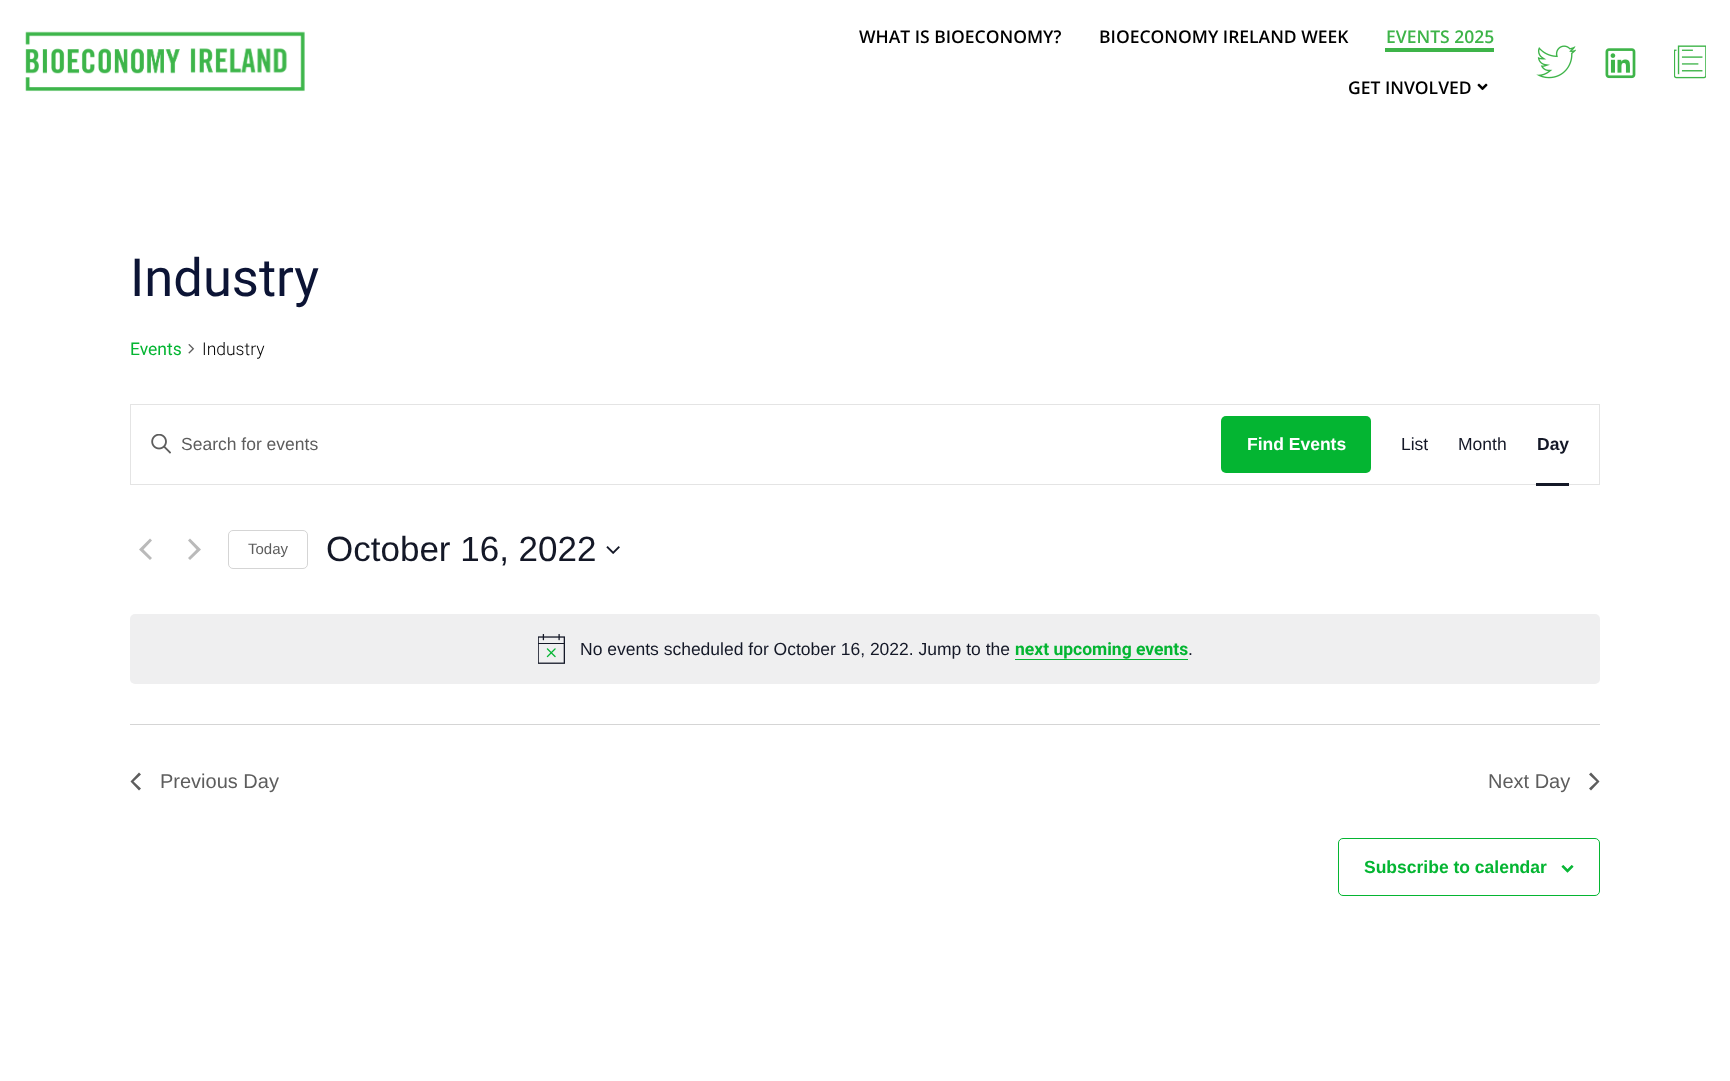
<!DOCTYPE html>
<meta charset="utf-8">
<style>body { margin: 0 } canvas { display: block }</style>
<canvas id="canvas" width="1730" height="1081"></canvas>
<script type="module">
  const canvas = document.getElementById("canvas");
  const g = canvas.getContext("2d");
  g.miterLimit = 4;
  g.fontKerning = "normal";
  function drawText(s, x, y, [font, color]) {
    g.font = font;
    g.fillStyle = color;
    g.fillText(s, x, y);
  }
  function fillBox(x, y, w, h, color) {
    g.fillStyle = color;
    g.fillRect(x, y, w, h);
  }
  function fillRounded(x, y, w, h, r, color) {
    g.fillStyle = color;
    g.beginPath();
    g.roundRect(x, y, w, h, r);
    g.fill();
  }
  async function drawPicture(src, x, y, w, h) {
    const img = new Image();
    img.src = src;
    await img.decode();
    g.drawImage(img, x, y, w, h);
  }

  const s1 = ["600 17.5px Open Sans", "#000000"];
  const s2 = ["600 17.5px Open Sans", "#3EB449"];
  const s3 = ["52.5px Roboto", "#0C1435"];
  const s4 = ["17.5px Roboto", "#04B532"];
  const s5 = ["300 17.5px Roboto", "#000000"];
  const s6 = ["17.5px Liberation Sans", "#5D5D5D"];
  const s7 = ["bold 17.5px Liberation Sans", "#FFFFFF"];
  const s8 = ["17.5px Liberation Sans", "#141827"];
  const s9 = ["bold 17.5px Liberation Sans", "#141827"];
  const s10 = ["15px Liberation Sans", "#5D5D5D"];
  const s11 = ["35px Liberation Sans", "#141827"];
  const s12 = ["bold 17.5px Roboto", "#04B532"];
  const s13 = ["20px Liberation Sans", "#5D5D5D"];
  const s14 = ["bold 17.5px Liberation Sans", "#04B532"];

  fillBox(0, 0, 1730, 1081, "#FFFFFF");
  await drawPicture("pic1.png", 25, 31, 280, 61);
  drawText("WHAT IS BIOECONOMY?", 859, 43, s1);
  drawText("BIOECONOMY IRELAND WEEK", 1099, 43, s1);
  drawText("EVENTS 2025", 1386, 43, s2);
  fillBox(1385, 48, 109, 4, "#3EB449");
  drawText("GET INVOLVED", 1348, 94, s1);
  await drawPicture("pic2.png", 1477, 83, 11, 8);
  await drawPicture("pic3.png", 1536, 45, 40, 34);
  await drawPicture("pic4.png", 1605, 48, 31, 31);
  await drawPicture("pic5.png", 1674, 45, 32, 34);
  drawText("Industry", 130, 296, s3);
  drawText("Events", 130, 355, s4);
  await drawPicture("pic6.png", 188, 344, 7, 10);
  drawText("Industry", 202, 355, s5);
  g.strokeStyle = "#E4E4E4";
  g.strokeRect(130.5, 404.5, 1469, 80);
  await drawPicture("pic7.png", 151, 434, 20, 20);
  drawText("Search for events", 181, 450, s6);
  fillRounded(1221, 416, 150, 57, 5, "#04B532");
  drawText("Find Events", 1247, 450, s7);
  drawText("List", 1401, 450, s8);
  drawText("Month", 1458, 450, s8);
  drawText("Day", 1537, 450, s9);
  fillBox(1536, 483, 33, 3, "#141827");
  g.fillStyle = "#BABABA";
  g.beginPath();
  g.moveTo(152, 558);
  g.lineTo(150, 560);
  g.lineTo(139, 549.5);
  g.lineTo(150, 538.5);
  g.lineTo(152, 540.5);
  g.lineTo(143.5, 549.5);
  g.closePath();
  g.moveTo(188, 540.5);
  g.lineTo(190, 538.5);
  g.lineTo(201, 549.5);
  g.lineTo(190, 560);
  g.lineTo(188, 558);
  g.lineTo(196.5, 549.5);
  g.closePath();
  g.fill();
  g.beginPath();
  g.roundRect(228.5, 530.5, 79, 38, 4.5);
  g.strokeStyle = "#D5D5D5";
  g.stroke();
  drawText("Today", 248, 554, s10);
  drawText("October 16, 2022", 326, 561, s11);
  await drawPicture("pic8.png", 606, 546, 14, 8);
  fillRounded(130, 614, 1470, 70, 5, "#EFEFF0");
  await drawPicture("pic9.png", 538, 634, 27, 30);
  drawText("No events scheduled for October 16, 2022. Jump to the", 580, 655, s8);
  drawText("next upcoming events", 1015, 655, s12);
  fillBox(1015, 659, 173, 1, "#04B532");
  drawText(".", 1188, 655, s8);
  fillBox(130, 724, 1470, 1, "#D5D5D5");
  g.fillStyle = "#5D5D5D";
  g.beginPath();
  g.moveTo(141, 788.5);
  g.lineTo(139, 790.5);
  g.lineTo(130.5, 781.5);
  g.lineTo(139, 772.5);
  g.lineTo(141, 774.5);
  g.lineTo(133.5, 781.5);
  g.closePath();
  g.fill();
  drawText("Previous Day", 160, 788, s13);
  drawText("Next Day", 1488, 788, s13);
  g.beginPath();
  g.moveTo(1589, 774.5);
  g.lineTo(1591, 772.5);
  g.lineTo(1599.5, 781.5);
  g.lineTo(1591, 790.5);
  g.lineTo(1589, 788.5);
  g.lineTo(1596.5, 781.5);
  g.closePath();
  g.fill();
  g.beginPath();
  g.roundRect(1338.5, 838.5, 261, 57, 4.5);
  g.strokeStyle = "#04B532";
  g.stroke();
  drawText("Subscribe to calendar", 1364, 873, s14);
  await drawPicture("pic10.png", 1561, 865, 13, 8);
</script>
